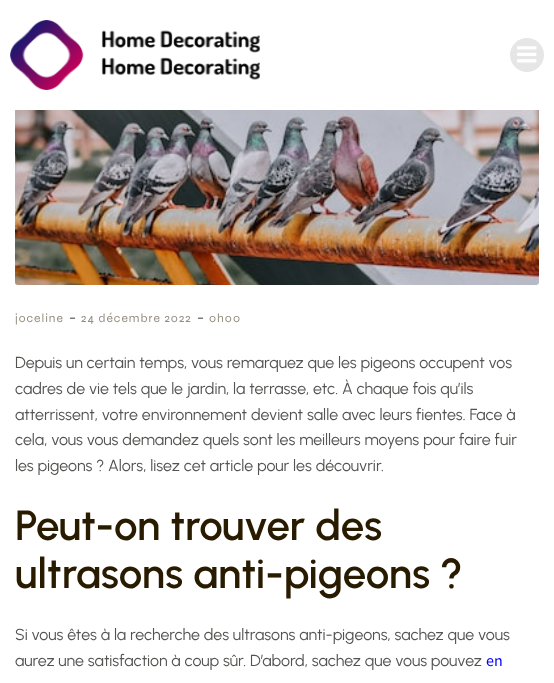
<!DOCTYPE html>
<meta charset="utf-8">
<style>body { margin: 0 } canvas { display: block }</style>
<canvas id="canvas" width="554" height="683"></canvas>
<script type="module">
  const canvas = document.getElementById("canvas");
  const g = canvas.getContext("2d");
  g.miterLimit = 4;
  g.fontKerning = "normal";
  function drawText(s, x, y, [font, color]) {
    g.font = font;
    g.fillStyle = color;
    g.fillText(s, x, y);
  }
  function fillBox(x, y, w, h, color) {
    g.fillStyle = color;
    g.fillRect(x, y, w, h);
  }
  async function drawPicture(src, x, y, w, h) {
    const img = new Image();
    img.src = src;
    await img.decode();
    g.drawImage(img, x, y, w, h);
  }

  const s1 = ["12px Syne", "#948D80"];
  const s2 = ["16px Urbanist", "#545351"];
  const s3 = ["600 42px Urbanist", "#291B00"];
  const s4 = ["16px Source Sans Pro", "#0000FF"];

  fillBox(0, 0, 554, 683, "#FFFFFF");
  await drawPicture("pic1.png", 10, 20, 250, 70);
  g.fillStyle = "#E6E6E6";
  g.beginPath();
  g.arc(527, 55, 17, 0, Math.PI * 2);
  g.fill();
  await drawPicture("pic2.png", 517, 46, 20, 17);
  await drawPicture("pic3.png", 15, 110, 524, 175);
  g.letterSpacing = "1px";
  drawText("joceline", 15, 322, s1);
  g.letterSpacing = "0px";
  drawText("-", 69, 323, s2);
  g.letterSpacing = "1px";
  drawText("24 décembre 2022", 81, 322, s1);
  g.letterSpacing = "0px";
  drawText("-", 197, 323, s2);
  g.letterSpacing = "1px";
  drawText("0h00", 209, 322, s1);
  g.letterSpacing = "0px";
  drawText("Depuis un certain temps, vous remarquez que les pigeons occupent vos", 15, 368, s2);
  drawText("cadres de vie tels que le jardin, la terrasse, etc. À chaque fois qu’ils", 15, 394, s2);
  drawText("atterrissent, votre environnement devient salle avec leurs fientes. Face à", 15, 420, s2);
  drawText("cela, vous vous demandez quels sont les meilleurs moyens pour faire fuir", 15, 445, s2);
  drawText("les pigeons ? Alors, lisez cet article pour les découvrir.", 15, 471, s2);
  drawText("Peut-on trouver des", 15, 540, s3);
  drawText("ultrasons anti-pigeons ?", 15, 588, s3);
  drawText("Si vous êtes à la recherche des ultrasons anti-pigeons, sachez que vous", 15, 640, s2);
  drawText("aurez une satisfaction à coup sûr. D’abord, sachez que vous pouvez", 15, 666, s2);
  drawText("en", 486, 666, s4);
</script>
